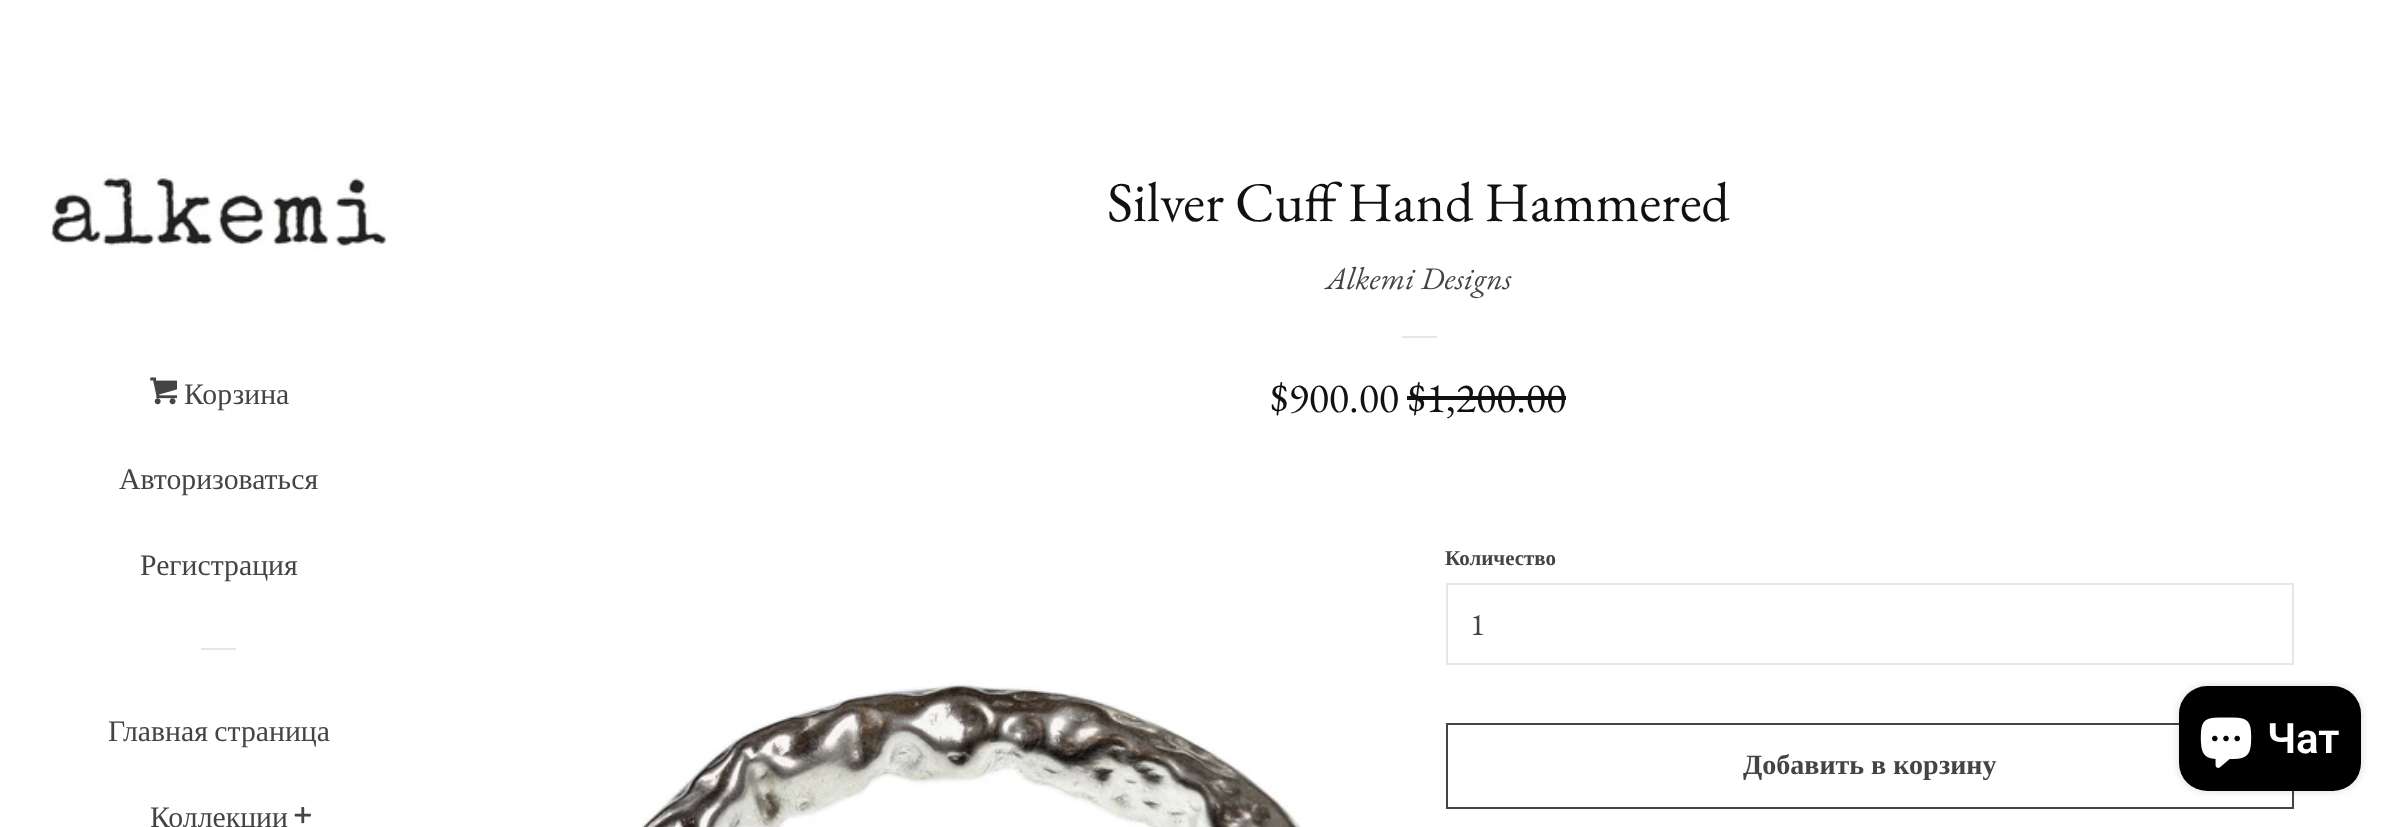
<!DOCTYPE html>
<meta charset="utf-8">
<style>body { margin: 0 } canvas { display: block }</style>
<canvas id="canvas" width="2398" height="827"></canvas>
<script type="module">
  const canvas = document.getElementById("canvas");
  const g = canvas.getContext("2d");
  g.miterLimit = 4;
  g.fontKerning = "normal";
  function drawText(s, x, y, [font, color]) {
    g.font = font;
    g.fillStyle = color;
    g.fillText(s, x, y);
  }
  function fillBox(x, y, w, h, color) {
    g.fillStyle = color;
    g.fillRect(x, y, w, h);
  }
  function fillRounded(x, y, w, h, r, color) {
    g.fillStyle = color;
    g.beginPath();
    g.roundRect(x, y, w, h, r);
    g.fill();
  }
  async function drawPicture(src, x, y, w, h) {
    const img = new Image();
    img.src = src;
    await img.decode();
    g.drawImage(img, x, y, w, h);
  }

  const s1 = ["29.75px Liberation Serif", "#444444"];
  const s2 = ["56px EB Garamond", "#111111"];
  const s3 = ["italic 31.5px EB Garamond", "#444444"];
  const s4 = ["42px EB Garamond", "#111111"];
  const s5 = ["bold 21px Liberation Serif", "#444444"];
  const s6 = ["31.5px EB Garamond", "#444444"];
  const s7 = ["bold 28px Liberation Serif", "#444444"];
  const s8 = ["600 42px Roboto", "#FFFFFF"];

  fillBox(0, 0, 2398, 827, "#FFFFFF");
  await drawPicture("pic1.png", 50, 174, 337, 76);
  await drawPicture("pic2.png", 150, 377, 27, 28);
  drawText("Корзина", 184, 404, s1);
  drawText("Авторизоваться", 119, 489, s1);
  drawText("Регистрация", 140, 575, s1);
  fillBox(201, 648, 35, 2, "#E6E6E6");
  g.wordSpacing = "-1px";
  drawText("Главная страница", 108, 741, s1);
  g.wordSpacing = "0px";
  drawText("Коллекции", 150, 827, s1);
  await drawPicture("pic3.png", 294, 807, 17, 17);
  drawText("Silver Cuff Hand Hammered", 1107, 221, s2);
  drawText("Alkemi Designs", 1326, 289, s3);
  fillBox(1402, 336, 35, 2, "#E7E7E7");
  drawText("$900.00 $1,200.00", 1270, 412, s4);
  fillBox(1407, 396, 159, 4, "#111111");
  await drawPicture("pic4.png", 640, 680, 662, 147);
  drawText("Количество", 1445, 565, s5);
  g.strokeStyle = "#E7E7E7";
  g.lineWidth = 2;
  g.strokeRect(1447, 584, 846, 80);
  drawText("1", 1470, 635, s6);
  g.strokeStyle = "#444444";
  g.strokeRect(1447, 724, 846, 84);
  drawText("Добавить в корзину", 1743, 774, s7);
  g.fillStyle = "rgba(0, 0, 0, 0.15)";
  g.filter = "blur(4.5px)";
  g.beginPath();
  g.roundRect(2179, 686, 182, 105, 28);
  g.fill();
  g.filter = "none";
  fillRounded(2179, 686, 182, 105, 28, "#000000");
  await drawPicture("pic5.png", 2200, 717, 52, 51);
  drawText("Чат", 2267, 753, s8);
</script>
